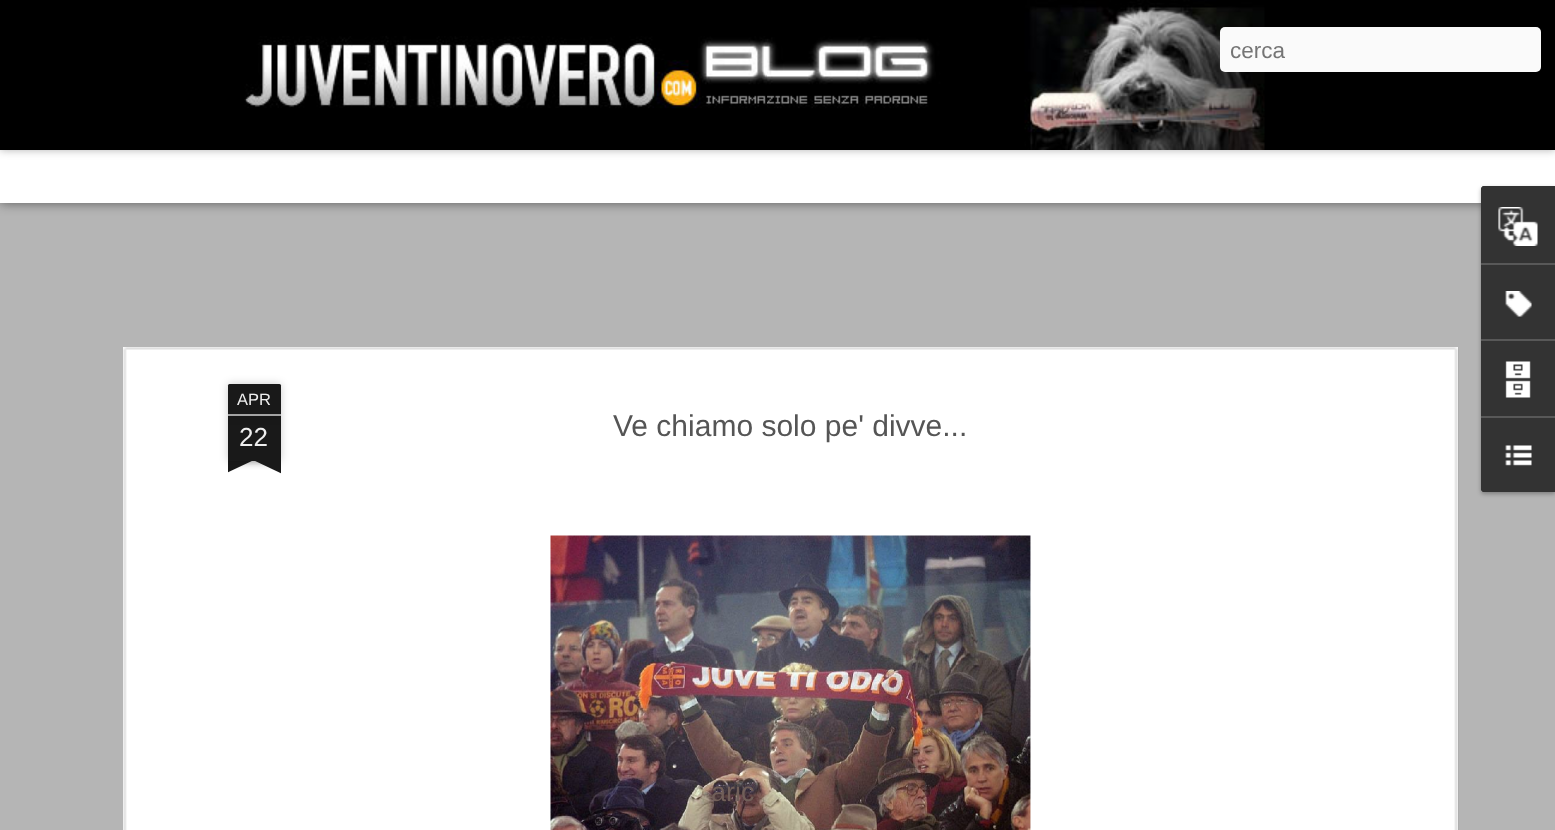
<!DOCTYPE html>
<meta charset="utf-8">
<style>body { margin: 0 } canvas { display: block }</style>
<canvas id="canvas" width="1555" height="830"></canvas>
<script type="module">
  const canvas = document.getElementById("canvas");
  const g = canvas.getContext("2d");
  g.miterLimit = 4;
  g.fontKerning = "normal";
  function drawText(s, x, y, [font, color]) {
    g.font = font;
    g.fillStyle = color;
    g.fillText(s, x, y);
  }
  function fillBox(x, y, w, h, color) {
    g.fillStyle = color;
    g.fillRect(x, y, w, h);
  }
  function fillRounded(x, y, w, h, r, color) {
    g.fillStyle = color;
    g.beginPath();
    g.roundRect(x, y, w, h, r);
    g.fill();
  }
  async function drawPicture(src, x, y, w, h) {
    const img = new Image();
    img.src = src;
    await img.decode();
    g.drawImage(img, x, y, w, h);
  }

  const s1 = ["22.5px Liberation Sans", "#757575"];
  const s2 = ["16.5px Liberation Sans", "#EEEEEE"];
  const s3 = ["26px Liberation Sans", "#EEEEEE"];
  const s4 = ["30px Liberation Sans", "#555555"];
  const s5 = ["27px Liberation Sans", "#715F59"];

  fillBox(0, 0, 1555, 830, "#B5B5B5");
  g.fillStyle = "rgba(0, 0, 0, 0.5)";
  g.filter = "blur(6px)";
  g.beginPath();
  g.rect(0, 150, 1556, 53);
  g.fill();
  g.filter = "none";
  fillBox(0, 150, 1555, 53, "#FFFFFF");
  g.fillStyle = "rgba(0, 0, 0, 0.3)";
  g.filter = "blur(4px)";
  g.beginPath();
  g.rect(0, 0, 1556, 150);
  g.fill();
  g.filter = "none";
  fillBox(0, 0, 1555, 150, "#000000");
  await drawPicture("pic1.png", 244, 0, 1021, 150);
  fillRounded(1220, 27, 321, 45, 5, "#FAFAFA");
  drawText("cerca", 1230, 58, s1);
  fillBox(123, 347, 1335, 483, "#FFFFFF");
  await drawPicture("pic2.png", 123, 347, 1336, 483);
  g.fillStyle = "rgba(0, 0, 0, 0.2)";
  g.filter = "blur(4px)";
  g.beginPath();
  g.rect(228, 416, 53, 45);
  g.fill();
  g.filter = "none";
  fillBox(228, 416, 53, 45, "#191919");
  g.fillStyle = "rgba(0, 0, 0, 0.2)";
  g.filter = "blur(4px)";
  g.beginPath();
  g.roundRect(228, 384, 53, 32, 1.5);
  g.fill();
  g.filter = "none";
  g.fillStyle = "#191919";
  g.beginPath();
  g.roundRect(228, 384, 53, 32, [1.5, 1.5, 0, 0]);
  g.fill();
  fillBox(228, 414, 53, 2, "#A3A3A3");
  drawText("APR", 237, 405, s2);
  drawText("22", 239, 446, s3);
  g.save();
  g.beginPath();
  g.rect(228, 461, 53, 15);
  g.clip();
  g.fillStyle = "rgba(0, 0, 0, 0.2)";
  g.filter = "blur(4px)";
  g.beginPath();
  g.rect(215, 446, 75, 15);
  g.fill();
  g.filter = "none";
  g.restore();
  g.save();
  g.beginPath();
  g.rect(228, 461, 53, 15);
  g.clip();
  g.fillStyle = "#191919";
  g.beginPath();
  g.moveTo(214, 462);
  g.lineTo(282, 430);
  g.lineTo(288, 444);
  g.lineTo(220, 476);
  g.closePath();
  g.fill();
  g.restore();
  g.save();
  g.beginPath();
  g.rect(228, 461, 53, 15);
  g.clip();
  g.fillStyle = "rgba(0, 0, 0, 0.2)";
  g.filter = "blur(4px)";
  g.beginPath();
  g.rect(219, 446, 75, 15);
  g.fill();
  g.filter = "none";
  g.restore();
  g.save();
  g.beginPath();
  g.rect(228, 461, 53, 15);
  g.clip();
  g.fillStyle = "#191919";
  g.beginPath();
  g.moveTo(225, 430);
  g.lineTo(293, 462);
  g.lineTo(287, 476);
  g.lineTo(219, 444);
  g.closePath();
  g.fill();
  g.restore();
  drawText("Ve chiamo solo pe' divve...", 613, 436, s4);
  await drawPicture("pic3.png", 550, 535, 481, 295);
  g.fillStyle = "rgba(0, 0, 0, 0.3)";
  g.filter = "blur(2px)";
  g.beginPath();
  g.roundRect(1481, 188, 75, 306, 3);
  g.fill();
  g.filter = "none";
  g.fillStyle = "#333333";
  g.beginPath();
  g.moveTo(1484, 186);
  g.lineTo(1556, 186);
  g.lineTo(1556, 492);
  g.lineTo(1484, 492);
  g.bezierCurveTo(1482.5, 492, 1481, 490.5, 1481, 489);
  g.lineTo(1481, 189);
  g.bezierCurveTo(1481, 187.5, 1482.5, 186, 1484, 186);
  g.closePath();
  g.fill();
  g.beginPath();
  g.moveTo(1484, 186);
  g.lineTo(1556, 186);
  g.lineTo(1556, 263);
  g.lineTo(1481, 263);
  g.lineTo(1481, 189);
  g.bezierCurveTo(1481, 187.5, 1482.5, 186, 1484, 186);
  g.closePath();
  g.fill();
  await drawPicture("pic4.png", 1498, 207, 40, 39);
  fillBox(1481, 263, 74, 2, "#585858");
  await drawPicture("pic5.png", 1505, 291, 27, 26);
  fillBox(1481, 339, 74, 2, "#585858");
  await drawPicture("pic6.png", 1505, 361, 26, 37);
  g.fillStyle = "#333333";
  g.beginPath();
  g.moveTo(1481, 416);
  g.lineTo(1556, 416);
  g.lineTo(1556, 492);
  g.lineTo(1484, 492);
  g.bezierCurveTo(1482.5, 492, 1481, 490.5, 1481, 489);
  g.closePath();
  g.fill();
  fillBox(1481, 416, 74, 2, "#585858");
  await drawPicture("pic7.png", 1505, 445, 27, 21);
  drawText("aric", 711, 801, s5);
</script>
